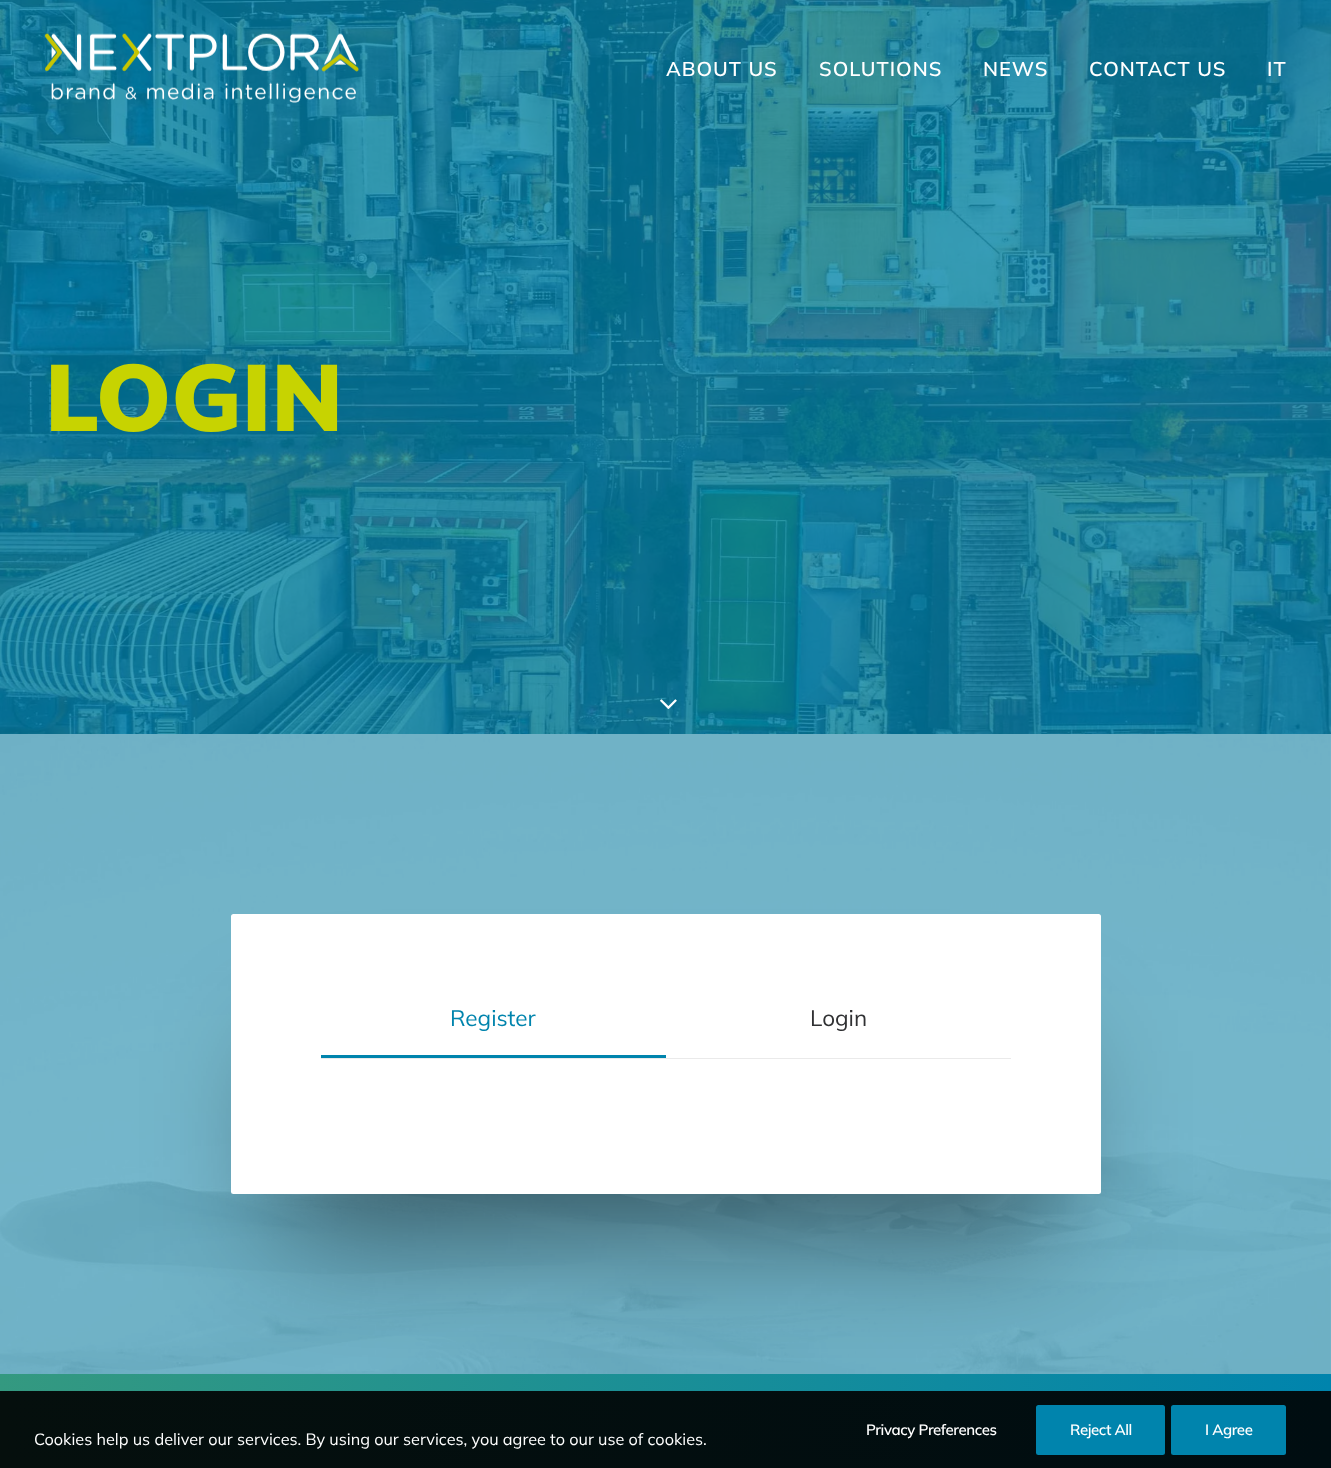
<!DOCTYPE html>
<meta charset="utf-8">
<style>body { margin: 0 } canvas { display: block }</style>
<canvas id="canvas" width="1331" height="1468"></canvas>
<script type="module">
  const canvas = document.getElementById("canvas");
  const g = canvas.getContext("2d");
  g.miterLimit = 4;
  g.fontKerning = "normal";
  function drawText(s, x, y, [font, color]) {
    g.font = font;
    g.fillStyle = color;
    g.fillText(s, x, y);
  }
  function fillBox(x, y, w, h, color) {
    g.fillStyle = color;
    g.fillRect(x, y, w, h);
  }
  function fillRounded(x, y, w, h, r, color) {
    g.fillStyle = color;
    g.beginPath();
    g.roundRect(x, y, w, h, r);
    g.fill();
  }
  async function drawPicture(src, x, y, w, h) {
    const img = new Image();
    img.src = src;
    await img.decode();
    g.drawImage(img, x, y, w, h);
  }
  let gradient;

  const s1 = ["600 20px Mulish", "#FFFFFF"];
  const s2 = ["900 94px Mulish", "#C7D301"];
  const s3 = ["22.5px Mulish", "#0084AD"];
  const s4 = ["22.5px Mulish", "#303133"];
  const s5 = ["600 15px Mulish", "#FFFFFF"];
  const s6 = ["16.25px Mulish", "#FFFFFF"];

  fillBox(0, 0, 1331, 1468, "#FFFFFF");
  await drawPicture("pic2.png", 0, 0, 1331, 734);
  await drawPicture("pic1.png", 45, 33, 314, 70);
  g.letterSpacing = "1px";
  drawText("ABOUT US", 666, 76, s1);
  drawText("SOLUTIONS", 819, 76, s1);
  drawText("NEWS", 983, 76, s1);
  drawText("CONTACT US", 1089, 76, s1);
  drawText("IT", 1267, 76, s1);
  g.letterSpacing = "0px";
  drawText("LOGIN", 45, 431, s2);
  await drawPicture("pic3.png", 660, 699, 17, 10);
  await drawPicture("pic4.png", 0, 734, 1331, 640);
  g.fillStyle = "rgba(0, 0, 0, 0.5)";
  g.filter = "blur(62.5px)";
  g.beginPath();
  g.rect(281, 1051, 770, 180);
  g.fill();
  g.filter = "none";
  fillRounded(231, 914, 870, 280, 2.5, "#FFFFFF");
  fillBox(321, 1058, 690, 1, "#EAEAEA");
  fillBox(321, 1055, 345, 3, "#0084AD");
  drawText("Register", 450, 1026, s3);
  drawText("Login", 810, 1026, s4);
  gradient = g.createLinearGradient(0, 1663, 1331, 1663);
  gradient.addColorStop(0, "#349980");
  gradient.addColorStop(1, "#0084AD");
  g.fillStyle = gradient;
  g.fillRect(0, 1374, 1331, 17);
  gradient = g.createLinearGradient(0, 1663, 1331, 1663);
  gradient.addColorStop(0, "#050F0D");
  gradient.addColorStop(1, "#000D11");
  g.fillStyle = gradient;
  g.fillRect(0, 1391, 1331, 77);
  g.letterSpacing = "-0.4px";
  drawText("Privacy Preferences", 866, 1435, s5);
  fillRounded(1036, 1405, 129, 50, 2.5, "#0084AD");
  drawText("Reject All", 1070, 1435, s5);
  fillRounded(1171, 1405, 115, 50, 2.5, "#0084AD");
  drawText("I Agree", 1205, 1435, s5);
  g.letterSpacing = "0px";
  drawText("Cookies help us deliver our services. By using our services, you agree to our use of cookies.", 34, 1445, s6);
</script>
